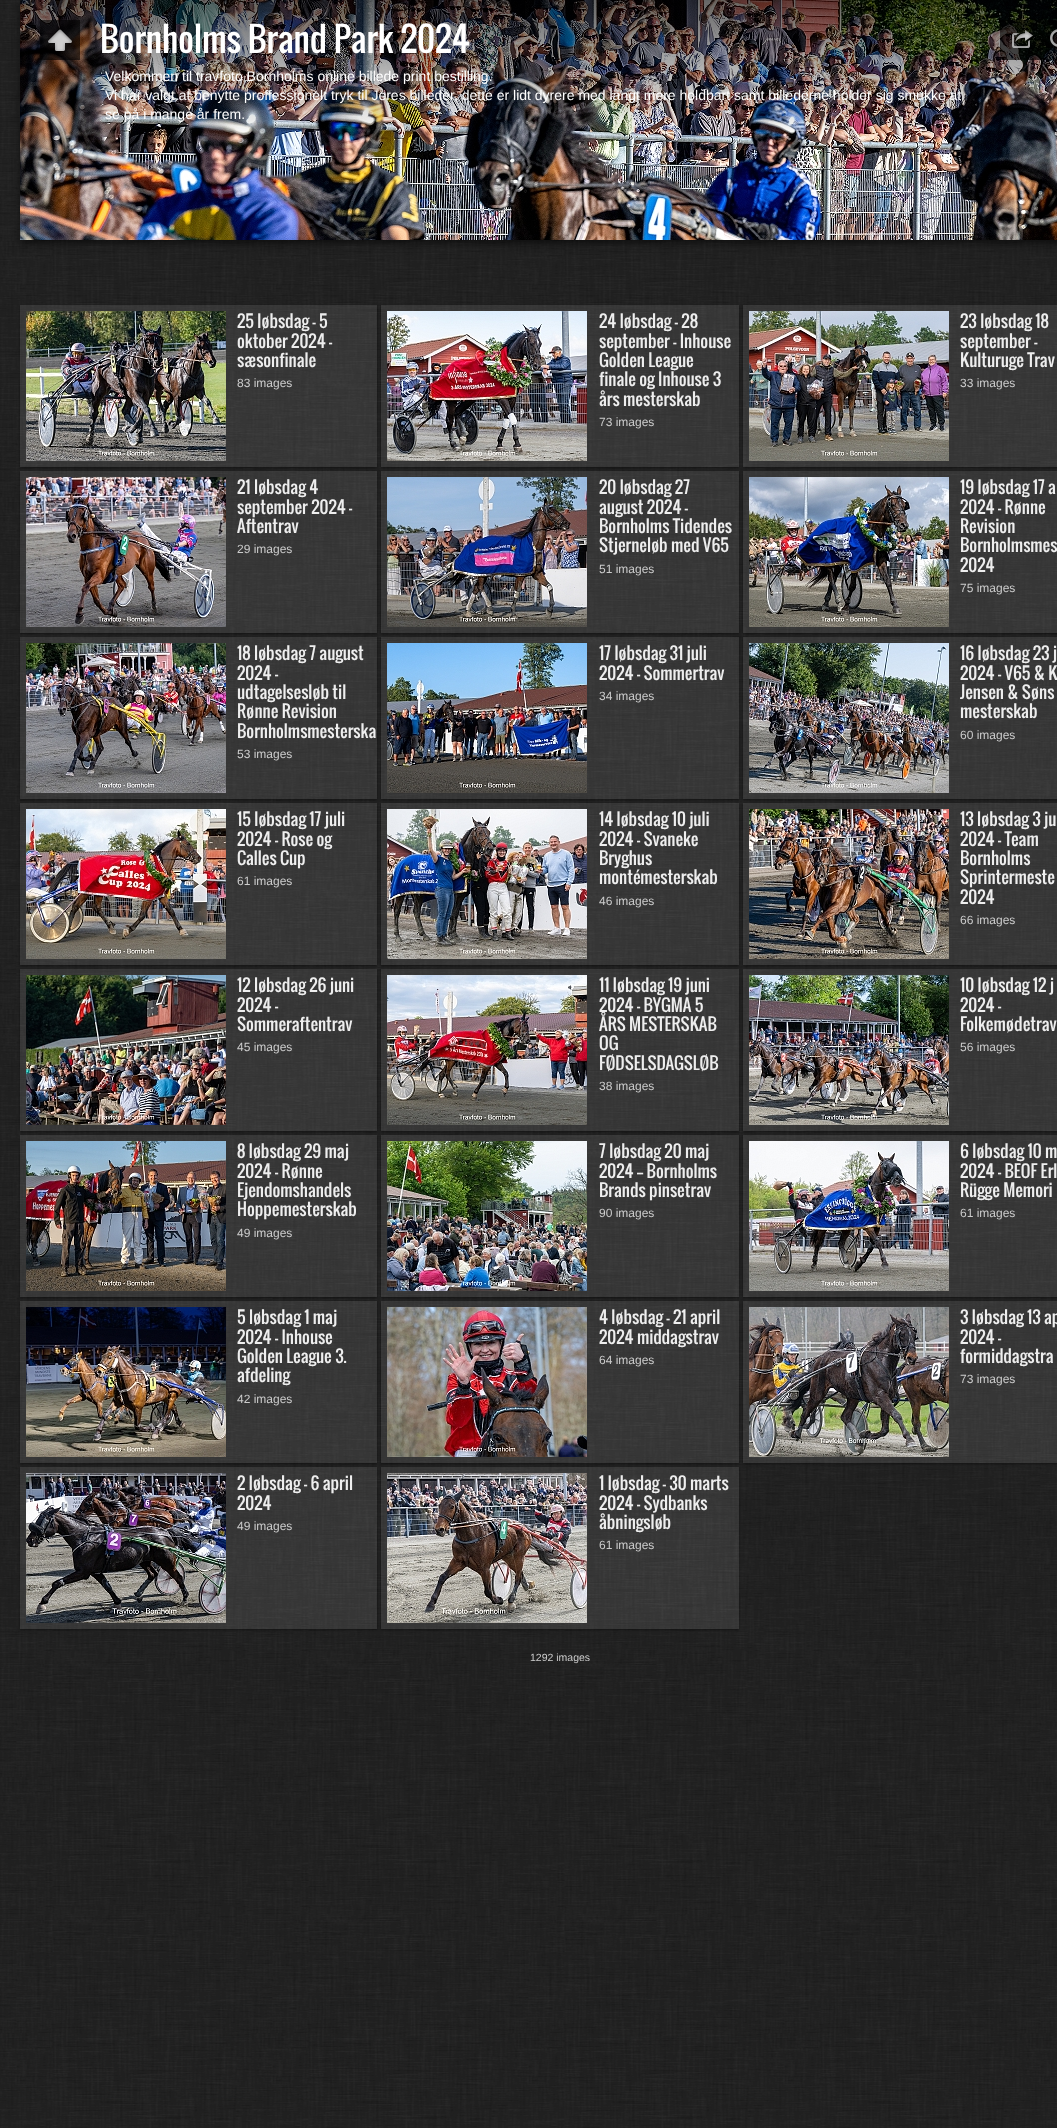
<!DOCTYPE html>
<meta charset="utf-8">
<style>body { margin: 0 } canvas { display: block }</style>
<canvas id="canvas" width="1057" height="2128"></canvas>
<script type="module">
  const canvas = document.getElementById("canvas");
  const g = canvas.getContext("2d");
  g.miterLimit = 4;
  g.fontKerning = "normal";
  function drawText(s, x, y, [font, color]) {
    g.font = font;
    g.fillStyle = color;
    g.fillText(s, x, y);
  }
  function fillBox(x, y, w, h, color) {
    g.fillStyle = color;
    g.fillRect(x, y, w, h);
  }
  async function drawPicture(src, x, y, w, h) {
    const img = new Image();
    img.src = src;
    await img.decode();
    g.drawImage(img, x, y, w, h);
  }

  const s1 = ["33.6px Oswald", "#FFFFFF"];
  const s2 = ["14px Liberation Sans", "#FFFFFF"];
  const s3 = ["16.75px Oswald", "#EEEEEE"];
  const s4 = ["12px Liberation Sans", "#CCCCCC"];
  const s5 = ["10.5px Liberation Sans", "#CCCCCC"];

  fillBox(0, 0, 1057, 2128, "#222222");
  await drawPicture("pic1.png", 0, 0, 1057, 2128);
  g.fillStyle = "rgba(0, 0, 0, 0.6)";
  g.filter = "blur(4px)";
  g.beginPath();
  g.rect(21, 3, 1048, 240);
  g.fill();
  g.filter = "none";
  await drawPicture("pic2.png", 20, 0, 1037, 240);
  fillBox(40, 20, 40, 40, "rgba(0, 0, 0, 0.6)");
  await drawPicture("pic3.png", 48, 29, 24, 22);
  drawText("Bornholms Brand Park 2024", 100, 53, s1);
  drawText("Velkommen til travfoto Bornholms online billede print bestilling.", 105, 81, s2);
  drawText("Vi har valgt at benytte proffessionelt tryk til Jeres billeder, dette er lidt dyrere med langt mere holdbart samt billederne holder sig smukke at", 105, 100, s2);
  drawText("se på i mange år frem.", 105, 119, s2);
  fillBox(1000, 20, 40, 40, "rgba(0, 0, 0, 0.6)");
  await drawPicture("pic4.png", 1012, 30, 21, 18);
  fillBox(1040, 20, 17, 40, "rgba(0, 0, 0, 0.6)");
  await drawPicture("pic5.png", 1050, 29, 7, 18);
  g.save();
  g.beginPath();
  g.moveTo(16, 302);
  g.lineTo(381, 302);
  g.lineTo(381, 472);
  g.lineTo(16, 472);
  g.closePath();
  g.moveTo(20, 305);
  g.lineTo(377, 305);
  g.lineTo(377, 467);
  g.lineTo(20, 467);
  g.closePath();
  g.clip("evenodd");
  g.fillStyle = "rgba(0, 0, 0, 0.4)";
  g.filter = "blur(1px)";
  g.beginPath();
  g.rect(20, 306, 357, 162);
  g.fill();
  g.filter = "none";
  g.restore();
  fillBox(20, 305, 357, 162, "rgba(255, 255, 255, 0.1)");
  await drawPicture("pic6.png", 26, 311, 200, 150);
  drawText("25 løbsdag - 5", 237, 328, s3);
  drawText("oktober 2024 -", 237, 348, s3);
  drawText("sæsonfinale", 237, 367, s3);
  drawText("83 images", 237, 387, s4);
  g.save();
  g.beginPath();
  g.moveTo(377, 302);
  g.lineTo(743, 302);
  g.lineTo(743, 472);
  g.lineTo(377, 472);
  g.closePath();
  g.moveTo(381, 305);
  g.lineTo(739, 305);
  g.lineTo(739, 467);
  g.lineTo(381, 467);
  g.closePath();
  g.clip("evenodd");
  g.fillStyle = "rgba(0, 0, 0, 0.4)";
  g.filter = "blur(1px)";
  g.beginPath();
  g.rect(381, 306, 358, 162);
  g.fill();
  g.filter = "none";
  g.restore();
  fillBox(381, 305, 358, 162, "rgba(255, 255, 255, 0.1)");
  await drawPicture("pic7.png", 387, 311, 200, 150);
  drawText("24 løbsdag - 28", 599, 328, s3);
  drawText("september - Inhouse", 599, 348, s3);
  drawText("Golden League", 599, 367, s3);
  drawText("finale og Inhouse 3", 599, 386, s3);
  drawText("års mesterskab", 599, 406, s3);
  drawText("73 images", 599, 426, s4);
  g.save();
  g.beginPath();
  g.moveTo(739, 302);
  g.lineTo(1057, 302);
  g.lineTo(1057, 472);
  g.lineTo(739, 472);
  g.closePath();
  g.moveTo(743, 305);
  g.lineTo(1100, 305);
  g.lineTo(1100, 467);
  g.lineTo(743, 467);
  g.closePath();
  g.clip("evenodd");
  g.fillStyle = "rgba(0, 0, 0, 0.4)";
  g.filter = "blur(1px)";
  g.beginPath();
  g.rect(743, 306, 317, 162);
  g.fill();
  g.filter = "none";
  g.restore();
  fillBox(743, 305, 314, 162, "rgba(255, 255, 255, 0.1)");
  await drawPicture("pic8.png", 749, 311, 200, 150);
  drawText("23 løbsdag 18", 960, 328, s3);
  drawText("september -", 960, 348, s3);
  drawText("Kulturuge Trav", 960, 367, s3);
  drawText("33 images", 960, 387, s4);
  g.save();
  g.beginPath();
  g.moveTo(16, 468);
  g.lineTo(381, 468);
  g.lineTo(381, 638);
  g.lineTo(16, 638);
  g.closePath();
  g.moveTo(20, 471);
  g.lineTo(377, 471);
  g.lineTo(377, 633);
  g.lineTo(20, 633);
  g.closePath();
  g.clip("evenodd");
  g.fillStyle = "rgba(0, 0, 0, 0.4)";
  g.filter = "blur(1px)";
  g.beginPath();
  g.rect(20, 472, 357, 162);
  g.fill();
  g.filter = "none";
  g.restore();
  fillBox(20, 471, 357, 162, "rgba(255, 255, 255, 0.1)");
  await drawPicture("pic9.png", 26, 477, 200, 150);
  drawText("21 løbsdag 4", 237, 494, s3);
  drawText("september 2024 -", 237, 514, s3);
  drawText("Aftentrav", 237, 533, s3);
  drawText("29 images", 237, 553, s4);
  g.save();
  g.beginPath();
  g.moveTo(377, 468);
  g.lineTo(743, 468);
  g.lineTo(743, 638);
  g.lineTo(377, 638);
  g.closePath();
  g.moveTo(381, 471);
  g.lineTo(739, 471);
  g.lineTo(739, 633);
  g.lineTo(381, 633);
  g.closePath();
  g.clip("evenodd");
  g.fillStyle = "rgba(0, 0, 0, 0.4)";
  g.filter = "blur(1px)";
  g.beginPath();
  g.rect(381, 472, 358, 162);
  g.fill();
  g.filter = "none";
  g.restore();
  fillBox(381, 471, 358, 162, "rgba(255, 255, 255, 0.1)");
  await drawPicture("pic10.png", 387, 477, 200, 150);
  drawText("20 løbsdag 27", 599, 494, s3);
  drawText("august 2024 -", 599, 514, s3);
  drawText("Bornholms Tidendes", 599, 533, s3);
  drawText("Stjerneløb med V65", 599, 552, s3);
  drawText("51 images", 599, 573, s4);
  g.save();
  g.beginPath();
  g.moveTo(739, 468);
  g.lineTo(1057, 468);
  g.lineTo(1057, 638);
  g.lineTo(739, 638);
  g.closePath();
  g.moveTo(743, 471);
  g.lineTo(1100, 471);
  g.lineTo(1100, 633);
  g.lineTo(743, 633);
  g.closePath();
  g.clip("evenodd");
  g.fillStyle = "rgba(0, 0, 0, 0.4)";
  g.filter = "blur(1px)";
  g.beginPath();
  g.rect(743, 472, 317, 162);
  g.fill();
  g.filter = "none";
  g.restore();
  fillBox(743, 471, 314, 162, "rgba(255, 255, 255, 0.1)");
  await drawPicture("pic11.png", 749, 477, 200, 150);
  drawText("19 løbsdag 17 a", 960, 494, s3);
  drawText("2024 - Rønne", 960, 514, s3);
  drawText("Revision", 960, 533, s3);
  drawText("Bornholmsmes", 960, 552, s3);
  drawText("2024", 960, 572, s3);
  drawText("75 images", 960, 592, s4);
  g.save();
  g.beginPath();
  g.moveTo(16, 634);
  g.lineTo(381, 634);
  g.lineTo(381, 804);
  g.lineTo(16, 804);
  g.closePath();
  g.moveTo(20, 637);
  g.lineTo(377, 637);
  g.lineTo(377, 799);
  g.lineTo(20, 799);
  g.closePath();
  g.clip("evenodd");
  g.fillStyle = "rgba(0, 0, 0, 0.4)";
  g.filter = "blur(1px)";
  g.beginPath();
  g.rect(20, 638, 357, 162);
  g.fill();
  g.filter = "none";
  g.restore();
  fillBox(20, 637, 357, 162, "rgba(255, 255, 255, 0.1)");
  await drawPicture("pic12.png", 26, 643, 200, 150);
  drawText("18 løbsdag 7 august", 237, 660, s3);
  drawText("2024 -", 237, 680, s3);
  drawText("udtagelsesløb til", 237, 699, s3);
  drawText("Rønne Revision", 237, 718, s3);
  drawText("Bornholmsmesterska", 237, 738, s3);
  drawText("53 images", 237, 758, s4);
  g.save();
  g.beginPath();
  g.moveTo(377, 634);
  g.lineTo(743, 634);
  g.lineTo(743, 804);
  g.lineTo(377, 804);
  g.closePath();
  g.moveTo(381, 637);
  g.lineTo(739, 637);
  g.lineTo(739, 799);
  g.lineTo(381, 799);
  g.closePath();
  g.clip("evenodd");
  g.fillStyle = "rgba(0, 0, 0, 0.4)";
  g.filter = "blur(1px)";
  g.beginPath();
  g.rect(381, 638, 358, 162);
  g.fill();
  g.filter = "none";
  g.restore();
  fillBox(381, 637, 358, 162, "rgba(255, 255, 255, 0.1)");
  await drawPicture("pic13.png", 387, 643, 200, 150);
  drawText("17 løbsdag 31 juli", 599, 660, s3);
  drawText("2024 - Sommertrav", 599, 680, s3);
  drawText("34 images", 599, 700, s4);
  g.save();
  g.beginPath();
  g.moveTo(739, 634);
  g.lineTo(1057, 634);
  g.lineTo(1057, 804);
  g.lineTo(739, 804);
  g.closePath();
  g.moveTo(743, 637);
  g.lineTo(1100, 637);
  g.lineTo(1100, 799);
  g.lineTo(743, 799);
  g.closePath();
  g.clip("evenodd");
  g.fillStyle = "rgba(0, 0, 0, 0.4)";
  g.filter = "blur(1px)";
  g.beginPath();
  g.rect(743, 638, 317, 162);
  g.fill();
  g.filter = "none";
  g.restore();
  fillBox(743, 637, 314, 162, "rgba(255, 255, 255, 0.1)");
  await drawPicture("pic14.png", 749, 643, 200, 150);
  drawText("16 løbsdag 23 j", 960, 660, s3);
  drawText("2024 - V65 & K", 960, 680, s3);
  drawText("Jensen & Søns", 960, 699, s3);
  drawText("mesterskab", 960, 718, s3);
  drawText("60 images", 960, 739, s4);
  g.save();
  g.beginPath();
  g.moveTo(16, 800);
  g.lineTo(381, 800);
  g.lineTo(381, 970);
  g.lineTo(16, 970);
  g.closePath();
  g.moveTo(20, 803);
  g.lineTo(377, 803);
  g.lineTo(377, 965);
  g.lineTo(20, 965);
  g.closePath();
  g.clip("evenodd");
  g.fillStyle = "rgba(0, 0, 0, 0.4)";
  g.filter = "blur(1px)";
  g.beginPath();
  g.rect(20, 804, 357, 162);
  g.fill();
  g.filter = "none";
  g.restore();
  fillBox(20, 803, 357, 162, "rgba(255, 255, 255, 0.1)");
  await drawPicture("pic15.png", 26, 809, 200, 150);
  drawText("15 løbsdag 17 juli", 237, 826, s3);
  drawText("2024 - Rose og", 237, 846, s3);
  drawText("Calles Cup", 237, 865, s3);
  drawText("61 images", 237, 885, s4);
  g.save();
  g.beginPath();
  g.moveTo(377, 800);
  g.lineTo(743, 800);
  g.lineTo(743, 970);
  g.lineTo(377, 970);
  g.closePath();
  g.moveTo(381, 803);
  g.lineTo(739, 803);
  g.lineTo(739, 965);
  g.lineTo(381, 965);
  g.closePath();
  g.clip("evenodd");
  g.fillStyle = "rgba(0, 0, 0, 0.4)";
  g.filter = "blur(1px)";
  g.beginPath();
  g.rect(381, 804, 358, 162);
  g.fill();
  g.filter = "none";
  g.restore();
  fillBox(381, 803, 358, 162, "rgba(255, 255, 255, 0.1)");
  await drawPicture("pic16.png", 387, 809, 200, 150);
  drawText("14 løbsdag 10 juli", 599, 826, s3);
  drawText("2024 - Svaneke", 599, 846, s3);
  drawText("Bryghus", 599, 865, s3);
  drawText("montémesterskab", 599, 884, s3);
  drawText("46 images", 599, 905, s4);
  g.save();
  g.beginPath();
  g.moveTo(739, 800);
  g.lineTo(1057, 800);
  g.lineTo(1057, 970);
  g.lineTo(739, 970);
  g.closePath();
  g.moveTo(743, 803);
  g.lineTo(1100, 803);
  g.lineTo(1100, 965);
  g.lineTo(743, 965);
  g.closePath();
  g.clip("evenodd");
  g.fillStyle = "rgba(0, 0, 0, 0.4)";
  g.filter = "blur(1px)";
  g.beginPath();
  g.rect(743, 804, 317, 162);
  g.fill();
  g.filter = "none";
  g.restore();
  fillBox(743, 803, 314, 162, "rgba(255, 255, 255, 0.1)");
  await drawPicture("pic17.png", 749, 809, 200, 150);
  drawText("13 løbsdag 3 ju", 960, 826, s3);
  drawText("2024 - Team", 960, 846, s3);
  drawText("Bornholms", 960, 865, s3);
  drawText("Sprintermeste", 960, 884, s3);
  drawText("2024", 960, 904, s3);
  drawText("66 images", 960, 924, s4);
  g.save();
  g.beginPath();
  g.moveTo(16, 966);
  g.lineTo(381, 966);
  g.lineTo(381, 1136);
  g.lineTo(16, 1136);
  g.closePath();
  g.moveTo(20, 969);
  g.lineTo(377, 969);
  g.lineTo(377, 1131);
  g.lineTo(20, 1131);
  g.closePath();
  g.clip("evenodd");
  g.fillStyle = "rgba(0, 0, 0, 0.4)";
  g.filter = "blur(1px)";
  g.beginPath();
  g.rect(20, 970, 357, 162);
  g.fill();
  g.filter = "none";
  g.restore();
  fillBox(20, 969, 357, 162, "rgba(255, 255, 255, 0.1)");
  await drawPicture("pic18.png", 26, 975, 200, 150);
  drawText("12 løbsdag 26 juni", 237, 992, s3);
  drawText("2024 -", 237, 1012, s3);
  drawText("Sommeraftentrav", 237, 1031, s3);
  drawText("45 images", 237, 1051, s4);
  g.save();
  g.beginPath();
  g.moveTo(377, 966);
  g.lineTo(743, 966);
  g.lineTo(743, 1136);
  g.lineTo(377, 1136);
  g.closePath();
  g.moveTo(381, 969);
  g.lineTo(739, 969);
  g.lineTo(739, 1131);
  g.lineTo(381, 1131);
  g.closePath();
  g.clip("evenodd");
  g.fillStyle = "rgba(0, 0, 0, 0.4)";
  g.filter = "blur(1px)";
  g.beginPath();
  g.rect(381, 970, 358, 162);
  g.fill();
  g.filter = "none";
  g.restore();
  fillBox(381, 969, 358, 162, "rgba(255, 255, 255, 0.1)");
  await drawPicture("pic19.png", 387, 975, 200, 150);
  drawText("11 løbsdag 19 juni", 599, 992, s3);
  drawText("2024 - BYGMA 5", 599, 1012, s3);
  drawText("ÅRS MESTERSKAB", 599, 1031, s3);
  drawText("OG", 599, 1050, s3);
  drawText("FØDSELSDAGSLØB", 599, 1070, s3);
  drawText("38 images", 599, 1090, s4);
  g.save();
  g.beginPath();
  g.moveTo(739, 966);
  g.lineTo(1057, 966);
  g.lineTo(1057, 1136);
  g.lineTo(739, 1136);
  g.closePath();
  g.moveTo(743, 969);
  g.lineTo(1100, 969);
  g.lineTo(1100, 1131);
  g.lineTo(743, 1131);
  g.closePath();
  g.clip("evenodd");
  g.fillStyle = "rgba(0, 0, 0, 0.4)";
  g.filter = "blur(1px)";
  g.beginPath();
  g.rect(743, 970, 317, 162);
  g.fill();
  g.filter = "none";
  g.restore();
  fillBox(743, 969, 314, 162, "rgba(255, 255, 255, 0.1)");
  await drawPicture("pic20.png", 749, 975, 200, 150);
  drawText("10 løbsdag 12 j", 960, 992, s3);
  drawText("2024 -", 960, 1012, s3);
  drawText("Folkemødetrav", 960, 1031, s3);
  drawText("56 images", 960, 1051, s4);
  g.save();
  g.beginPath();
  g.moveTo(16, 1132);
  g.lineTo(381, 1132);
  g.lineTo(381, 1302);
  g.lineTo(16, 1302);
  g.closePath();
  g.moveTo(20, 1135);
  g.lineTo(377, 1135);
  g.lineTo(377, 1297);
  g.lineTo(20, 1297);
  g.closePath();
  g.clip("evenodd");
  g.fillStyle = "rgba(0, 0, 0, 0.4)";
  g.filter = "blur(1px)";
  g.beginPath();
  g.rect(20, 1136, 357, 162);
  g.fill();
  g.filter = "none";
  g.restore();
  fillBox(20, 1135, 357, 162, "rgba(255, 255, 255, 0.1)");
  await drawPicture("pic21.png", 26, 1141, 200, 150);
  drawText("8 løbsdag 29 maj", 237, 1158, s3);
  drawText("2024 - Rønne", 237, 1178, s3);
  drawText("Ejendomshandels", 237, 1197, s3);
  drawText("Hoppemesterskab", 237, 1216, s3);
  drawText("49 images", 237, 1237, s4);
  g.save();
  g.beginPath();
  g.moveTo(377, 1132);
  g.lineTo(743, 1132);
  g.lineTo(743, 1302);
  g.lineTo(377, 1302);
  g.closePath();
  g.moveTo(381, 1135);
  g.lineTo(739, 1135);
  g.lineTo(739, 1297);
  g.lineTo(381, 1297);
  g.closePath();
  g.clip("evenodd");
  g.fillStyle = "rgba(0, 0, 0, 0.4)";
  g.filter = "blur(1px)";
  g.beginPath();
  g.rect(381, 1136, 358, 162);
  g.fill();
  g.filter = "none";
  g.restore();
  fillBox(381, 1135, 358, 162, "rgba(255, 255, 255, 0.1)");
  await drawPicture("pic22.png", 387, 1141, 200, 150);
  drawText("7 løbsdag 20 maj", 599, 1158, s3);
  drawText("2024 -- Bornholms", 599, 1178, s3);
  drawText("Brands pinsetrav", 599, 1197, s3);
  drawText("90 images", 599, 1217, s4);
  g.save();
  g.beginPath();
  g.moveTo(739, 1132);
  g.lineTo(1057, 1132);
  g.lineTo(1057, 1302);
  g.lineTo(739, 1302);
  g.closePath();
  g.moveTo(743, 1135);
  g.lineTo(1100, 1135);
  g.lineTo(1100, 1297);
  g.lineTo(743, 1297);
  g.closePath();
  g.clip("evenodd");
  g.fillStyle = "rgba(0, 0, 0, 0.4)";
  g.filter = "blur(1px)";
  g.beginPath();
  g.rect(743, 1136, 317, 162);
  g.fill();
  g.filter = "none";
  g.restore();
  fillBox(743, 1135, 314, 162, "rgba(255, 255, 255, 0.1)");
  await drawPicture("pic23.png", 749, 1141, 200, 150);
  drawText("6 løbsdag 10 m", 960, 1158, s3);
  drawText("2024 - BEOF Erl", 960, 1178, s3);
  drawText("Rügge Memori", 960, 1197, s3);
  drawText("61 images", 960, 1217, s4);
  g.save();
  g.beginPath();
  g.moveTo(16, 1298);
  g.lineTo(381, 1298);
  g.lineTo(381, 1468);
  g.lineTo(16, 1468);
  g.closePath();
  g.moveTo(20, 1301);
  g.lineTo(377, 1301);
  g.lineTo(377, 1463);
  g.lineTo(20, 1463);
  g.closePath();
  g.clip("evenodd");
  g.fillStyle = "rgba(0, 0, 0, 0.4)";
  g.filter = "blur(1px)";
  g.beginPath();
  g.rect(20, 1302, 357, 162);
  g.fill();
  g.filter = "none";
  g.restore();
  fillBox(20, 1301, 357, 162, "rgba(255, 255, 255, 0.1)");
  await drawPicture("pic24.png", 26, 1307, 200, 150);
  drawText("5 løbsdag 1 maj", 237, 1324, s3);
  drawText("2024 - Inhouse", 237, 1344, s3);
  drawText("Golden League 3.", 237, 1363, s3);
  drawText("afdeling", 237, 1382, s3);
  drawText("42 images", 237, 1403, s4);
  g.save();
  g.beginPath();
  g.moveTo(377, 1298);
  g.lineTo(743, 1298);
  g.lineTo(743, 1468);
  g.lineTo(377, 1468);
  g.closePath();
  g.moveTo(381, 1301);
  g.lineTo(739, 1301);
  g.lineTo(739, 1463);
  g.lineTo(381, 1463);
  g.closePath();
  g.clip("evenodd");
  g.fillStyle = "rgba(0, 0, 0, 0.4)";
  g.filter = "blur(1px)";
  g.beginPath();
  g.rect(381, 1302, 358, 162);
  g.fill();
  g.filter = "none";
  g.restore();
  fillBox(381, 1301, 358, 162, "rgba(255, 255, 255, 0.1)");
  await drawPicture("pic25.png", 387, 1307, 200, 150);
  drawText("4 løbsdag - 21 april", 599, 1324, s3);
  drawText("2024 middagstrav", 599, 1344, s3);
  drawText("64 images", 599, 1364, s4);
  g.save();
  g.beginPath();
  g.moveTo(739, 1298);
  g.lineTo(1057, 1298);
  g.lineTo(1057, 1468);
  g.lineTo(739, 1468);
  g.closePath();
  g.moveTo(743, 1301);
  g.lineTo(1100, 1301);
  g.lineTo(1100, 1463);
  g.lineTo(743, 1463);
  g.closePath();
  g.clip("evenodd");
  g.fillStyle = "rgba(0, 0, 0, 0.4)";
  g.filter = "blur(1px)";
  g.beginPath();
  g.rect(743, 1302, 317, 162);
  g.fill();
  g.filter = "none";
  g.restore();
  fillBox(743, 1301, 314, 162, "rgba(255, 255, 255, 0.1)");
  await drawPicture("pic26.png", 749, 1307, 200, 150);
  drawText("3 løbsdag 13 ap", 960, 1324, s3);
  drawText("2024 -", 960, 1344, s3);
  drawText("formiddagstra", 960, 1363, s3);
  drawText("73 images", 960, 1383, s4);
  g.save();
  g.beginPath();
  g.moveTo(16, 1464);
  g.lineTo(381, 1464);
  g.lineTo(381, 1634);
  g.lineTo(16, 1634);
  g.closePath();
  g.moveTo(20, 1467);
  g.lineTo(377, 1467);
  g.lineTo(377, 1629);
  g.lineTo(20, 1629);
  g.closePath();
  g.clip("evenodd");
  g.fillStyle = "rgba(0, 0, 0, 0.4)";
  g.filter = "blur(1px)";
  g.beginPath();
  g.rect(20, 1468, 357, 162);
  g.fill();
  g.filter = "none";
  g.restore();
  fillBox(20, 1467, 357, 162, "rgba(255, 255, 255, 0.1)");
  await drawPicture("pic27.png", 26, 1473, 200, 150);
  drawText("2 løbsdag - 6 april", 237, 1490, s3);
  drawText("2024", 237, 1510, s3);
  drawText("49 images", 237, 1530, s4);
  g.save();
  g.beginPath();
  g.moveTo(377, 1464);
  g.lineTo(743, 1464);
  g.lineTo(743, 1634);
  g.lineTo(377, 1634);
  g.closePath();
  g.moveTo(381, 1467);
  g.lineTo(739, 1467);
  g.lineTo(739, 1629);
  g.lineTo(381, 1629);
  g.closePath();
  g.clip("evenodd");
  g.fillStyle = "rgba(0, 0, 0, 0.4)";
  g.filter = "blur(1px)";
  g.beginPath();
  g.rect(381, 1468, 358, 162);
  g.fill();
  g.filter = "none";
  g.restore();
  fillBox(381, 1467, 358, 162, "rgba(255, 255, 255, 0.1)");
  await drawPicture("pic28.png", 387, 1473, 200, 150);
  drawText("1 løbsdag - 30 marts", 599, 1490, s3);
  drawText("2024 - Sydbanks", 599, 1510, s3);
  drawText("åbningsløb", 599, 1529, s3);
  drawText("61 images", 599, 1549, s4);
  drawText("1292 images", 530, 1661, s5);
</script>
